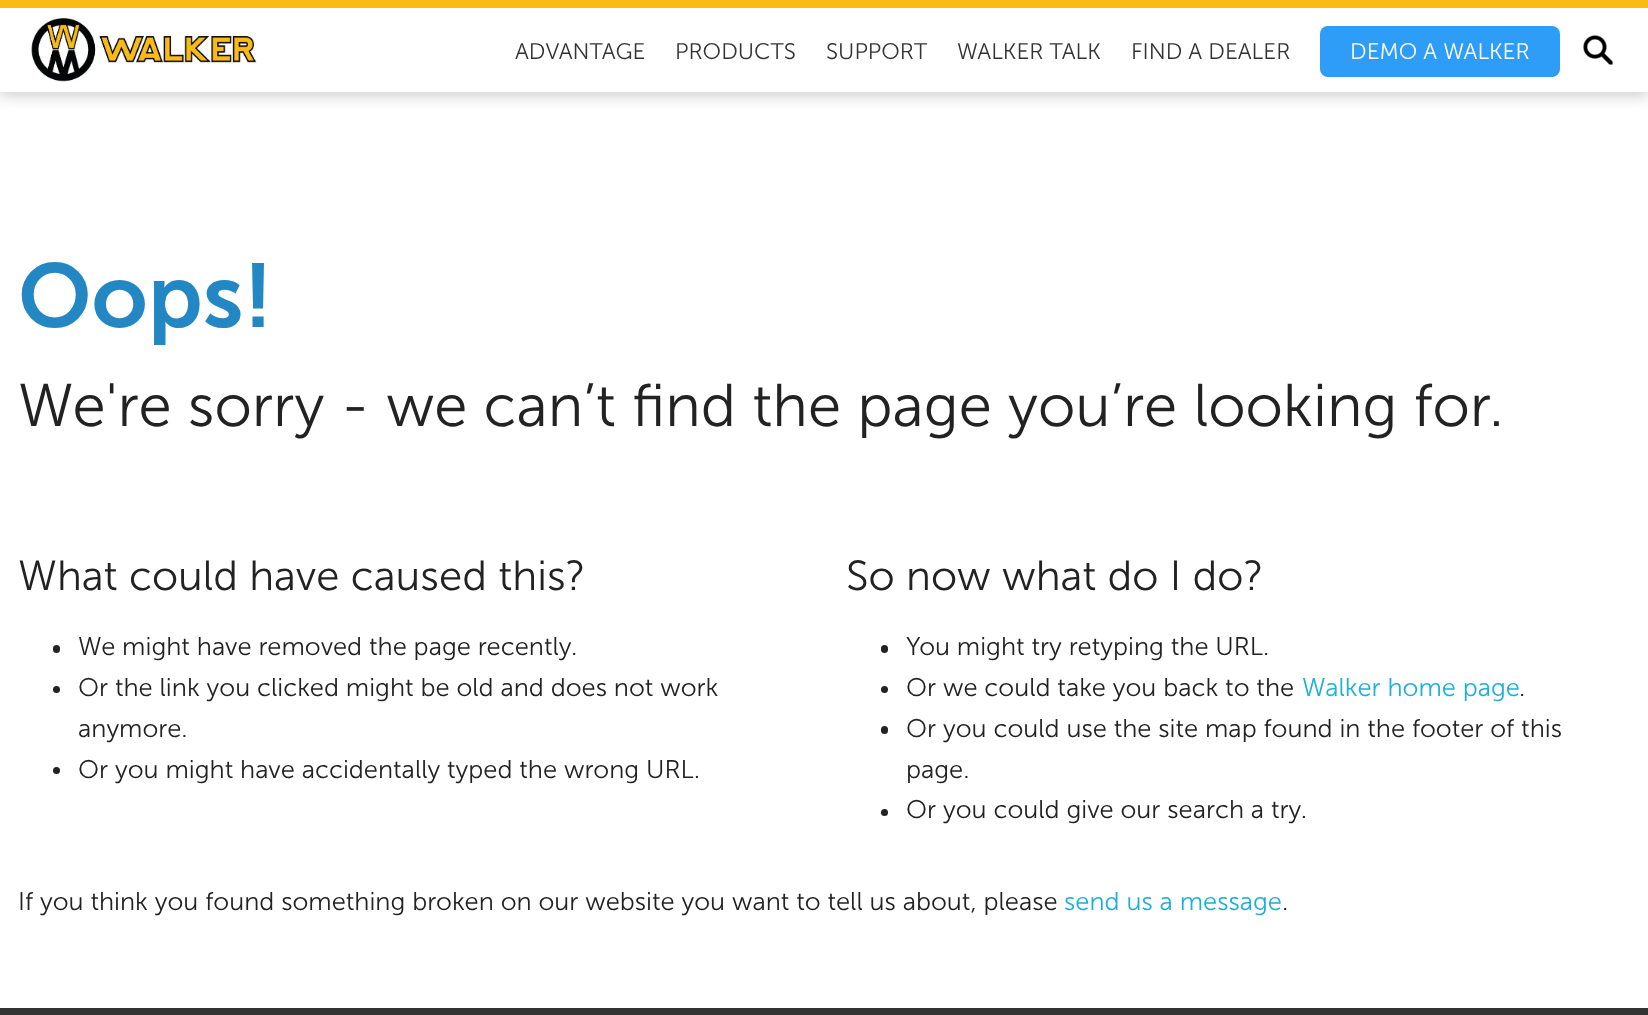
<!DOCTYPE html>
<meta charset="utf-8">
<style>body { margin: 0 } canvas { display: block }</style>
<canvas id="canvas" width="1648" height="1015"></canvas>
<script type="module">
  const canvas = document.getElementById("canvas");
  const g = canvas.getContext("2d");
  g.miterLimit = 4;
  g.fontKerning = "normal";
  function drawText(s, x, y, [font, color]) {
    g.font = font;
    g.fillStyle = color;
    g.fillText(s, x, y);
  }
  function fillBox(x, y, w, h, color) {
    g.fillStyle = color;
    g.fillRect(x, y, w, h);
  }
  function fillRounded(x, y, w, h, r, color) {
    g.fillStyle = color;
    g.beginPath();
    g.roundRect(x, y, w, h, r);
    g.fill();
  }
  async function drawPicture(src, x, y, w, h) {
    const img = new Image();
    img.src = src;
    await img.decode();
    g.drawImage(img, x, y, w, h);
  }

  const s1 = ["300 22.5px 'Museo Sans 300'", "#333333"];
  const s2 = ["300 22.5px 'Museo Sans 300'", "#FFFFFF"];
  const s3 = ["600 90px 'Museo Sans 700'", "#2387C3"];
  const s4 = ["300 60px 'Museo Sans 300'", "#222222"];
  const s5 = ["300 42px 'Museo Sans 300'", "#222222"];
  const s6 = ["300 25.5px 'Museo Sans 300'", "#222222"];
  const s7 = ["300 25.5px 'Museo Sans 300'", "#1EAEDB"];

  fillBox(0, 0, 1648, 1015, "#FFFFFF");
  g.fillStyle = "rgba(0, 0, 0, 0.21)";
  g.filter = "blur(7.5px)";
  g.beginPath();
  g.rect(0, 0, 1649, 95);
  g.fill();
  g.filter = "none";
  fillBox(0, 8, 1648, 84, "#FFFFFF");
  fillBox(0, 0, 1648, 8, "#FABB14");
  await drawPicture("pic1.png", 31, 18, 226, 64);
  drawText("ADVANTAGE", 515, 59, s1);
  drawText("PRODUCTS", 675, 59, s1);
  drawText("SUPPORT", 826, 59, s1);
  drawText("WALKER TALK", 957, 59, s1);
  drawText("FIND A DEALER", 1131, 59, s1);
  fillRounded(1320, 26, 240, 51, 8, "#2E9DF7");
  drawText("DEMO A WALKER", 1350, 59, s2);
  await drawPicture("pic2.png", 1583, 35, 30, 30);
  drawText("Oops!", 18, 327, s3);
  drawText("We're sorry - we can’t find the page you’re looking for.", 18, 426, s4);
  drawText("What could have caused this?", 18, 590, s5);
  fillRounded(53, 645, 7, 8, 3.5, "#222222");
  drawText("We might have removed the page recently.", 78, 655, s6);
  g.beginPath();
  g.arc(56.5, 689.5, 3.5, 0, Math.PI * 2);
  g.fill();
  drawText("Or the link you clicked might be old and does not work", 78, 696, s6);
  drawText("anymore.", 78, 737, s6);
  g.beginPath();
  g.arc(56.5, 770.5, 3.5, 0, Math.PI * 2);
  g.fill();
  drawText("Or you might have accidentally typed the wrong URL.", 78, 778, s6);
  drawText("So now what do I do?", 846, 590, s5);
  fillRounded(881, 645, 7, 8, 3.5, "#222222");
  drawText("You might try retyping the URL.", 906, 655, s6);
  g.beginPath();
  g.arc(884.5, 689.5, 3.5, 0, Math.PI * 2);
  g.fill();
  drawText("Or we could take you back to the", 906, 696, s6);
  drawText("Walker home page", 1302, 696, s7);
  drawText(".", 1519, 696, s6);
  fillRounded(881, 726, 7, 8, 3.5, "#222222");
  drawText("Or you could use the site map found in the footer of this", 906, 737, s6);
  drawText("page.", 906, 778, s6);
  g.beginPath();
  g.arc(884.5, 812.5, 3.5, 0, Math.PI * 2);
  g.fill();
  drawText("Or you could give our search a try.", 906, 818, s6);
  drawText("If you think you found something broken on our website you want to tell us about, please", 18, 910, s6);
  drawText("send us a message", 1064, 910, s7);
  drawText(".", 1282, 910, s6);
  fillBox(0, 1008, 1648, 7, "#333333");
</script>
